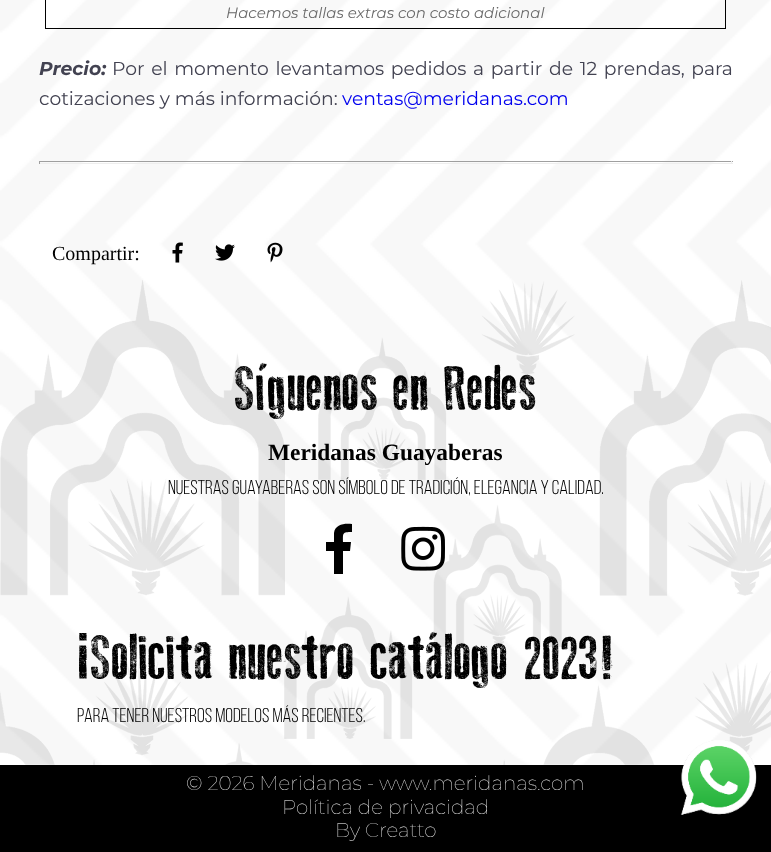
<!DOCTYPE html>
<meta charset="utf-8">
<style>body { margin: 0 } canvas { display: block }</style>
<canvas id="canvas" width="771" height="852"></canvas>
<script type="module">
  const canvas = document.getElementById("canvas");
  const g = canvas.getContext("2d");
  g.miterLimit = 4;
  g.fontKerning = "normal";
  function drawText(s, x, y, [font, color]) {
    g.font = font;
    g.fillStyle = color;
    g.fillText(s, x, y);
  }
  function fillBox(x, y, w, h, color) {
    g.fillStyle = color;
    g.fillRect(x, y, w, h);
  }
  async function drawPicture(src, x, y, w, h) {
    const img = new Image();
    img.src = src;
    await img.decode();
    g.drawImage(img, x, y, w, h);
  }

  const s1 = ["italic 15px Montserrat", "#696969"];
  const s2 = ["italic bold 18.75px Montserrat", "#424251"];
  const s3 = ["18.75px Montserrat", "#424251"];
  const s4 = ["18.75px Montserrat", "#0000EE"];
  const s5 = ["20px Liberation Serif", "#000000"];
  const s6 = ["62.5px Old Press", "#000000"];
  const s7 = ["bold 23.4px Liberation Serif", "#000000"];
  const s8 = ["20px Bebas Neue", "#000000"];
  const s9 = ["100 20px Montserrat", "#FFFFFF"];

  fillBox(0, 0, 771, 852, "#FFFFFF");
  await drawPicture("pic1.png", 0, 0, 771, 765);
  g.strokeStyle = "#000000";
  g.strokeRect(45.5, -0.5, 680, 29);
  drawText("Hacemos tallas extras con costo adicional", 226, 18, s1);
  drawText("Precio:", 39, 75, s2);
  g.wordSpacing = "1.75px";
  drawText("Por el momento levantamos pedidos a partir de 12 prendas, para", 112, 75, s3);
  g.wordSpacing = "0px";
  drawText("cotizaciones y más información:", 39, 105, s3);
  drawText("ventas@meridanas.com", 342, 105, s4);
  fillBox(39, 161, 694, 1, "#9F9F9F");
  fillBox(731, 161, 1, 3, "#EEEEEE");
  fillBox(39, 163, 694, 1, "#EEEEEE");
  fillBox(39, 161, 1, 3, "#9F9F9F");
  drawText("Compartir:", 52, 260, s5);
  await drawPicture("pic2.png", 172, 242, 11, 21);
  await drawPicture("pic3.png", 215, 244, 20, 17);
  await drawPicture("pic4.png", 267, 242, 16, 21);
  await drawPicture("pic5.png", 0, 280, 771, 485);
  drawText("Síguenos en Redes", 235, 410, s6);
  drawText("Meridanas Guayaberas", 268, 460, s7);
  drawText("Nuestras Guayaberas son símbolo de tradición, elegancia y calidad.", 168, 494, s8);
  g.beginPath();
  g.moveTo(334, 574);
  g.lineTo(334, 551);
  g.lineTo(326, 551);
  g.lineTo(326, 542);
  g.lineTo(334, 542);
  g.lineTo(334, 533);
  g.bezierCurveTo(335, 524, 345, 523, 352, 524);
  g.lineTo(352, 532);
  g.bezierCurveTo(342, 532, 343, 533, 343, 542);
  g.lineTo(351, 542);
  g.lineTo(350, 551);
  g.lineTo(343, 551);
  g.lineTo(343, 574);
  g.closePath();
  g.fill();
  await drawPicture("pic6.png", 401, 526, 44, 45);
  drawText("¡Solicita nuestro catálogo 2023!", 77, 679, s6);
  drawText("Para tener nuestros modelos más recientes.", 77, 722, s8);
  fillBox(0, 765, 771, 87, "#000000");
  drawText("© 2026 Meridanas - www.meridanas.com", 186, 790, s9);
  drawText("Política de privacidad", 282, 814, s9);
  drawText("By Creatto", 335, 837, s9);
  await drawPicture("pic7.png", 680, 740, 77, 75);
</script>
